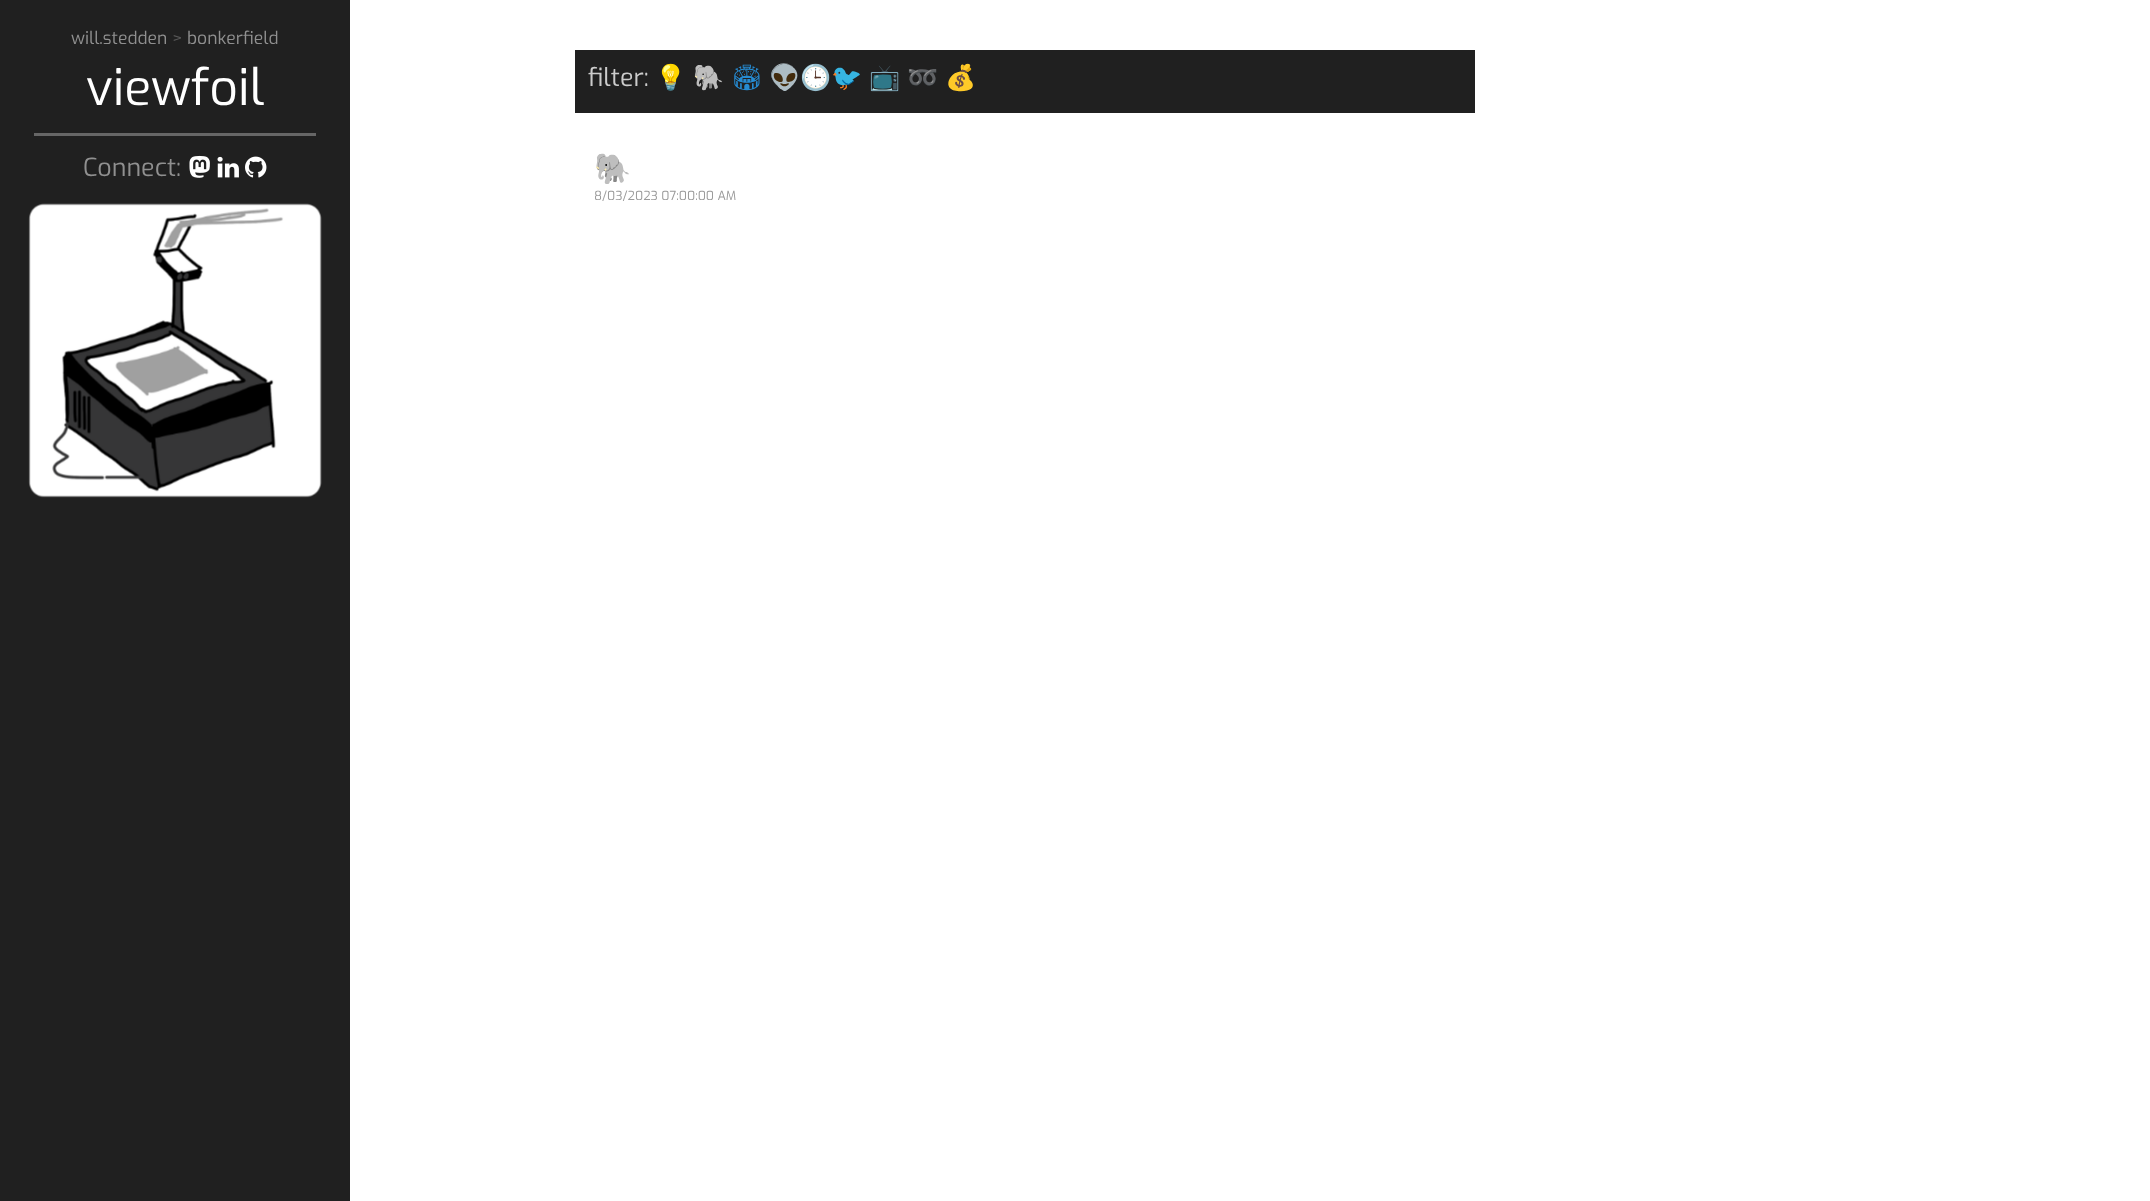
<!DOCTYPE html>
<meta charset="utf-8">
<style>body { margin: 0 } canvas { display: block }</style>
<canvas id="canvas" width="2150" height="1201"></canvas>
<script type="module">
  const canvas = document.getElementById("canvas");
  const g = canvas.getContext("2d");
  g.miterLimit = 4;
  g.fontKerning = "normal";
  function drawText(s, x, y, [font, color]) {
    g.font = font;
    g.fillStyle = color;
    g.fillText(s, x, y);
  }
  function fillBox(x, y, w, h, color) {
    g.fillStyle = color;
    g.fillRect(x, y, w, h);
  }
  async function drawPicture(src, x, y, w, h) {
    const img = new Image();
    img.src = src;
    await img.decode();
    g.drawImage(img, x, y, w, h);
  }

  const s1 = ["17.5px Exo", "#909090"];
  const s2 = ["17.5px Exo", "#585858"];
  const s3 = ["50px Exo", "#FFFFFF"];
  const s4 = ["25px Exo", "#909090"];
  const s5 = ["25px Exo", "#CCCCCC"];
  const s6 = ["25px Noto Color Emoji", "#268BD2"];
  const s7 = ["25px Noto Emoji", "#268BD2"];
  const s8 = ["bold 30px Noto Color Emoji", "#303030"];
  const s9 = ["12.5px Exo", "#9A9A9A"];

  fillBox(0, 0, 2150, 1201, "#FFFFFF");
  fillBox(0, 0, 350, 1201, "#202020");
  drawText("will.stedden", 71, 44, s1);
  drawText(">", 172, 44, s2);
  drawText("bonkerfield", 187, 44, s1);
  drawText("viewfoil", 86, 105, s3);
  fillBox(34, 133, 282, 3, "#666666");
  drawText("Connect:", 83, 176, s4);
  await drawPicture("pic1.png", 189, 155, 21, 23);
  await drawPicture("pic2.png", 217, 156, 22, 22);
  await drawPicture("pic3.png", 245, 156, 22, 22);
  await drawPicture("pic4.png", 28, 203, 294, 295);
  fillBox(575, 50, 900, 63, "#202020");
  drawText("filter:", 588, 86, s5);
  drawText("💡", 655, 86, s6);
  drawText("🐘", 693, 86, s6);
  drawText("🏟", 731, 86, s7);
  drawText("👽🕒🐦", 769, 86, s6);
  drawText("📺", 869, 86, s6);
  drawText("➿", 907, 86, s6);
  drawText("💰", 945, 86, s6);
  drawText("🐘", 594, 179, s8);
  drawText("8/03/2023 07:00:00 AM", 594, 200, s9);
</script>
